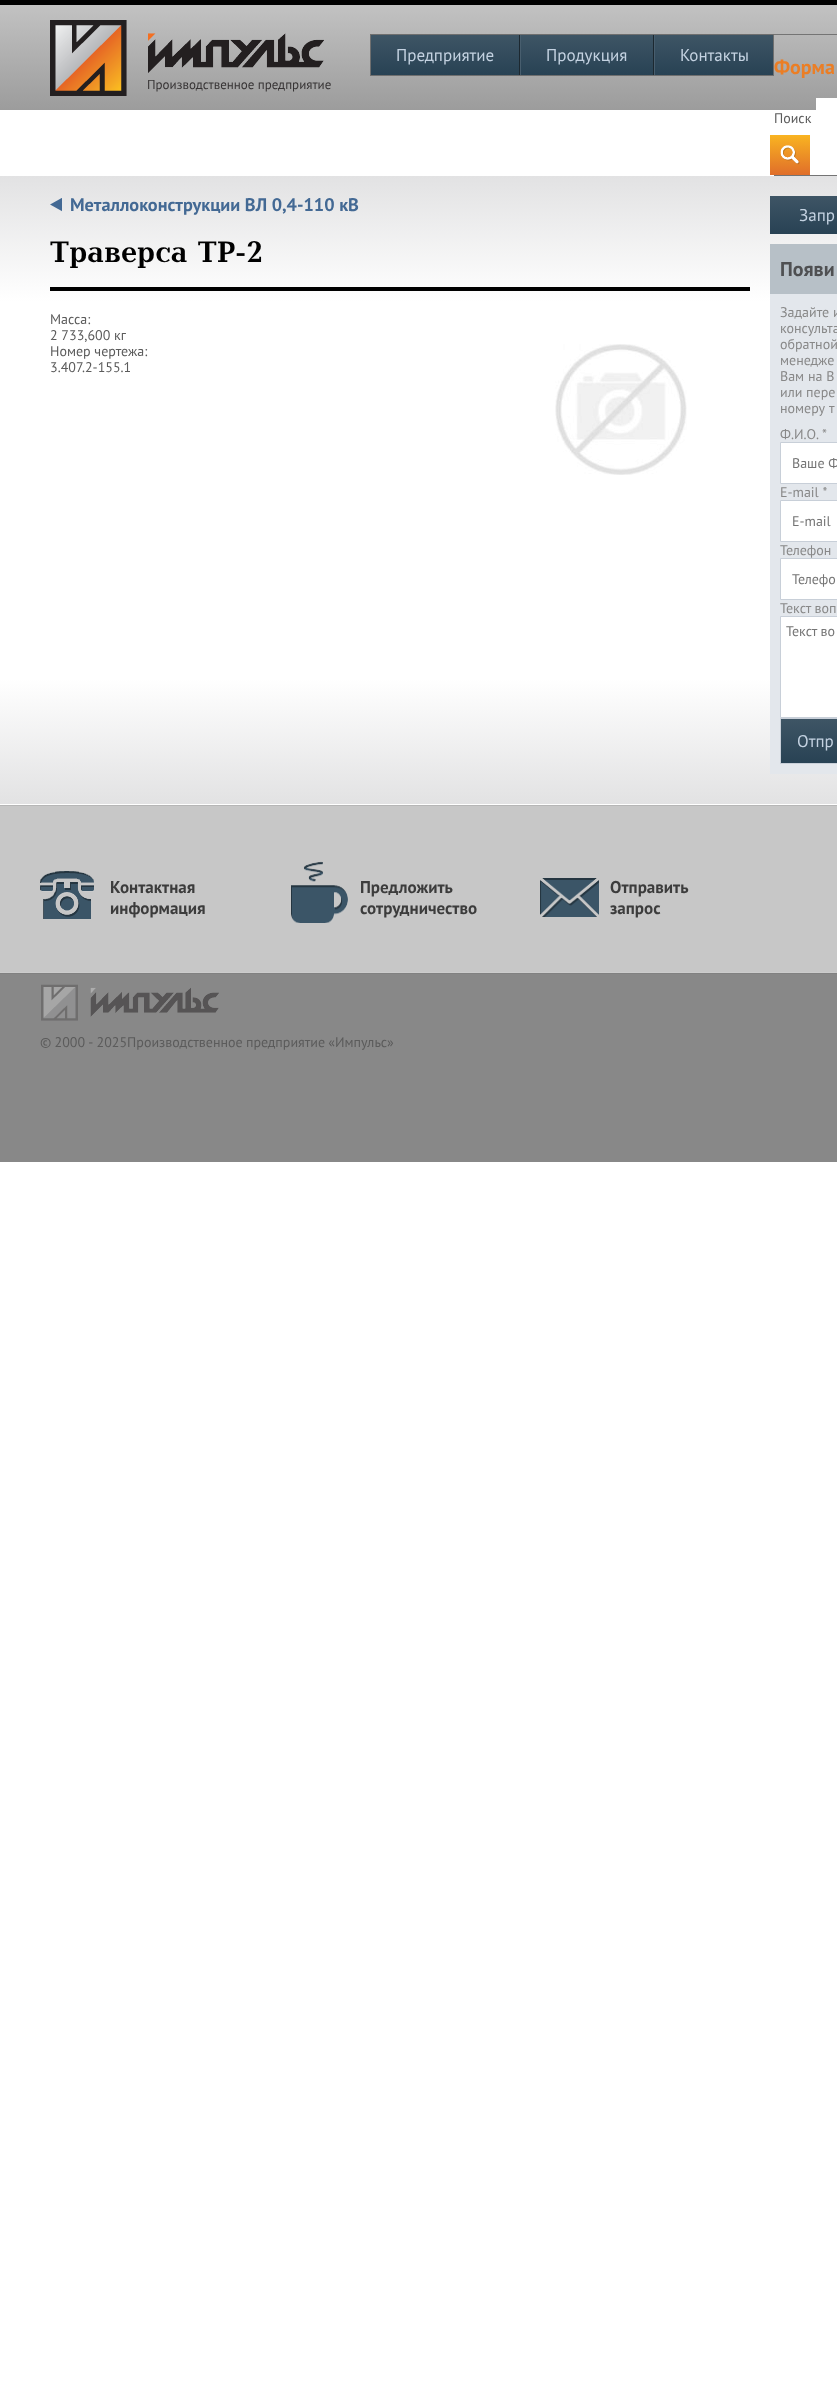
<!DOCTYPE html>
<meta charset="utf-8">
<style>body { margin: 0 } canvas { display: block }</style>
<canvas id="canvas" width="837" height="2387"></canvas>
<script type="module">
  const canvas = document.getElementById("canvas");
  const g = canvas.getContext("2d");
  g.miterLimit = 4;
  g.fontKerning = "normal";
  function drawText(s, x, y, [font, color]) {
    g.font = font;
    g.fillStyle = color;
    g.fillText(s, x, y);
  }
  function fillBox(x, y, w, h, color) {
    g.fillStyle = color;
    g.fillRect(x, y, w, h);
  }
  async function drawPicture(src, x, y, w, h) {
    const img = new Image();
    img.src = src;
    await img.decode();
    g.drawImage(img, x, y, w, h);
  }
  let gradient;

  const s1 = ["13px PT Sans", "#373435"];
  const s2 = ["17px PT Sans", "#C4D2E1"];
  const s3 = ["bold 20px PT Sans", "#EB7E25"];
  const s4 = ["14px PT Sans", "#5B5B5B"];
  const s5 = ["bold 18.25px PT Sans", "#436994"];
  const s6 = ["bold 29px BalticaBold", "#000000"];
  const s7 = ["bold 20px PT Sans", "#4F5052"];
  const s8 = ["14px PT Sans", "#888888"];
  const s9 = ["14px PT Sans", "#757575"];
  const s10 = ["bold 17px PT Sans", "#3C3C3C"];

  fillBox(0, 0, 837, 2387, "#FFFFFF");
  gradient = g.createLinearGradient(470, 110, 470, 5);
  gradient.addColorStop(0, "#9C9C9C");
  gradient.addColorStop(1, "#C2C2C2");
  g.fillStyle = gradient;
  g.fillRect(0, 5, 837, 105);
  fillBox(0, 0, 837, 5, "#000000");
  await drawPicture("pic1.png", 50, 20, 274, 76);
  drawText("Производственное предприятие", 147, 89, s1);
  g.strokeStyle = "#6F6F6F";
  g.strokeRect(370.5, 34.5, 403, 41);
  gradient = g.createLinearGradient(445, 75, 445, 35);
  gradient.addColorStop(0, "#284254");
  gradient.addColorStop(1, "#3E5565");
  g.fillStyle = gradient;
  g.fillRect(371, 35, 148, 40);
  fillBox(519, 35, 1, 40, "#1C2830");
  drawText("Предприятие", 396, 61, s2);
  gradient = g.createLinearGradient(587, 75, 587, 35);
  gradient.addColorStop(0, "#284254");
  gradient.addColorStop(1, "#3E5565");
  g.fillStyle = gradient;
  g.fillRect(521, 35, 132, 40);
  fillBox(653, 35, 1, 40, "#1C2830");
  fillBox(520, 35, 1, 40, "#485E6E");
  drawText("Продукция", 546, 61, s2);
  gradient = g.createLinearGradient(714, 75, 714, 35);
  gradient.addColorStop(0, "#284254");
  gradient.addColorStop(1, "#3E5565");
  g.fillStyle = gradient;
  g.fillRect(655, 35, 118, 40);
  fillBox(654, 35, 1, 40, "#485E6E");
  drawText("Контакты", 680, 61, s2);
  fillBox(774, 34, 63, 1, "#747474");
  fillBox(774, 175, 63, 1, "#747474");
  drawText("Форма", 774, 74, s3);
  fillBox(816, 98, 21, 12, "#FFFFFF");
  drawText("Поиск", 774, 123, s4);
  await drawPicture("pic2.png", 770, 135, 40, 40);
  gradient = g.createLinearGradient(470, 804, 470, 176);
  gradient.addColorStop(0, "#E2E2E3");
  gradient.addColorStop(0.2, "#FFFFFF");
  gradient.addColorStop(0.8, "#FFFFFF");
  gradient.addColorStop(1, "#E2E2E3");
  g.fillStyle = gradient;
  g.fillRect(0, 176, 837, 628);
  await drawPicture("pic3.png", 50, 198, 12, 14);
  drawText("Металлоконструкции ВЛ 0,4-110 кВ", 70, 211, s5);
  fillBox(50, 287, 700, 4, "#000000");
  drawText("Траверса ТР-2", 50, 262, s6);
  drawText("Масса:", 50, 324, s4);
  drawText("2 733,600 кг", 50, 340, s4);
  drawText("Номер чертежа:", 50, 356, s4);
  drawText("3.407.2-155.1", 50, 372, s4);
  await drawPicture("pic4.png", 555, 344, 132, 131);
  gradient = g.createLinearGradient(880, 234, 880, 196);
  gradient.addColorStop(0, "#284254");
  gradient.addColorStop(1, "#3E5565");
  g.fillStyle = gradient;
  g.fillRect(770, 196, 67, 38);
  g.wordSpacing = "1px";
  drawText("Запр", 799, 221, s2);
  fillBox(770, 244, 67, 50, "#B7C0C7");
  drawText("Появи", 780, 276, s7);
  fillBox(770, 294, 67, 480, "#E3E7EC");
  g.wordSpacing = "0px";
  drawText("Задайте и", 780, 317, s8);
  drawText("консульта", 780, 333, s8);
  drawText("обратной", 780, 349, s8);
  drawText("менедже", 780, 365, s8);
  drawText("Вам на В", 780, 381, s8);
  drawText("или пере", 780, 397, s8);
  g.wordSpacing = "1px";
  drawText("номеру т", 780, 413, s8);
  g.wordSpacing = "0px";
  drawText("Ф.И.О.", 780, 439, s8);
  drawText("*", 822, 439, s8);
  g.fillStyle = "#FFFFFF";
  g.beginPath();
  g.rect(780.5, 442.5, 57, 41);
  g.fill();
  g.strokeStyle = "#C8CFD8";
  g.stroke();
  drawText("Ваше Ф", 792, 468, s9);
  drawText("E-mail *", 780, 497, s8);
  g.fillStyle = "#FFFFFF";
  g.beginPath();
  g.rect(780.5, 500.5, 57, 41);
  g.fill();
  g.stroke();
  drawText("E-mail", 792, 526, s9);
  drawText("Телефон", 780, 555, s8);
  g.fillStyle = "#FFFFFF";
  g.beginPath();
  g.rect(780.5, 558.5, 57, 41);
  g.fill();
  g.stroke();
  drawText("Телефо", 792, 584, s9);
  drawText("Текст воп", 780, 613, s8);
  g.fillStyle = "#FFFFFF";
  g.beginPath();
  g.rect(780.5, 616.5, 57, 101);
  g.fill();
  g.stroke();
  drawText("Текст во", 786, 636, s9);
  gradient = g.createLinearGradient(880, 763, 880, 719);
  gradient.addColorStop(0, "#284254");
  gradient.addColorStop(1, "#3E5565");
  g.fillStyle = gradient;
  g.fillRect(781, 719, 56, 44);
  g.strokeRect(780.5, 718.5, 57, 45);
  g.wordSpacing = "1px";
  drawText("Отпр", 797, 747, s2);
  fillBox(0, 806, 837, 166, "#C7C7C7");
  fillBox(0, 805, 837, 1, "#B6B6B6");
  fillBox(0, 972, 837, 1, "#CCCCCC");
  await drawPicture("pic5.png", 40, 871, 54, 48);
  g.wordSpacing = "0px";
  drawText("Контактная", 110, 893, s10);
  drawText("информация", 110, 914, s10);
  await drawPicture("pic6.png", 291, 861, 57, 62);
  drawText("Предложить", 360, 893, s10);
  drawText("сотрудничество", 360, 914, s10);
  await drawPicture("pic7.png", 540, 878, 59, 39);
  drawText("Отправить", 610, 893, s10);
  drawText("запрос", 610, 914, s10);
  fillBox(0, 974, 837, 188, "#888888");
  fillBox(0, 973, 837, 1, "#818181");
  await drawPicture("pic8.png", 41, 984, 178, 37);
  g.wordSpacing = "-0.5px";
  drawText("© 2000 - 2025Производственное предприятие «Импульс»", 40, 1047, s4);
</script>
